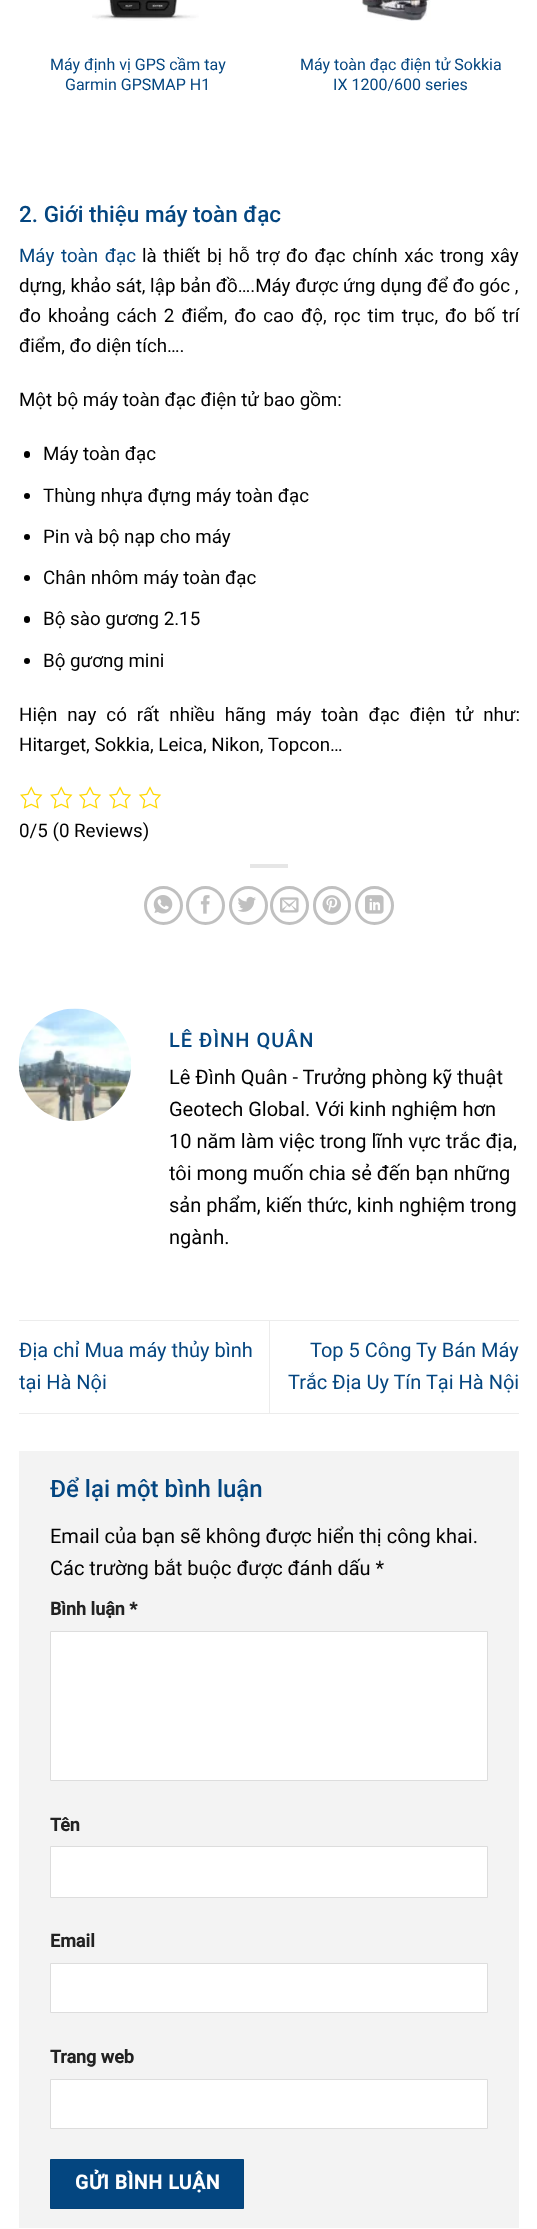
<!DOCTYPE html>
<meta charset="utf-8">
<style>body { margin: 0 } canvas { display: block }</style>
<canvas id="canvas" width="537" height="2229"></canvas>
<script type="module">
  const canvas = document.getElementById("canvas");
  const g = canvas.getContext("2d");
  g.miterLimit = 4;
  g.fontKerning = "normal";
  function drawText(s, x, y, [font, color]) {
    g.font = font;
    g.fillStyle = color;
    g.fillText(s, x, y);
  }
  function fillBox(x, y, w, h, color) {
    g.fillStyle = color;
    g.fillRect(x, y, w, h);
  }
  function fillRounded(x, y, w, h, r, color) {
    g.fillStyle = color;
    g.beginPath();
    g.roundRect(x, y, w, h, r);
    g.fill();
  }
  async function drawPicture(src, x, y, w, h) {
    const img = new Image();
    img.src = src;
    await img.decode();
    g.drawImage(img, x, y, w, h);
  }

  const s1 = ["16px Roboto", "#044680"];
  const s2 = ["500 22.5px Roboto", "#044680"];
  const s3 = ["18.75px Roboto", "#044680"];
  const s4 = ["18.75px Roboto", "#000000"];
  const s5 = ["500 20px Roboto", "#044680"];
  const s6 = ["20px Roboto", "#000000"];
  const s7 = ["20px Roboto", "#044680"];
  const s8 = ["500 24px Roboto", "#044680"];
  const s9 = ["bold 18px Roboto", "#222222"];
  const s10 = ["bold 19.5px Roboto", "#FFFFFF"];

  fillBox(0, 0, 537, 2229, "#FFFFFF");
  await drawPicture("pic1.png", 92, 0, 107, 21);
  drawText("Máy định vị GPS cầm tay", 50, 70, s1);
  drawText("Garmin GPSMAP H1", 65, 90, s1);
  await drawPicture("pic2.png", 361, 0, 70, 21);
  drawText("Máy toàn đạc điện tử Sokkia", 300, 70, s1);
  drawText("IX 1200/600 series", 333, 90, s1);
  drawText("2. Giới thiệu máy toàn đạc", 19, 222, s2);
  g.wordSpacing = "2px";
  drawText("Máy toàn đạc", 19, 262, s3);
  g.wordSpacing = "1.9px";
  drawText("là thiết bị hỗ trợ đo đạc chính xác trong xây", 142, 262, s4);
  g.wordSpacing = "0px";
  drawText("dựng, khảo sát, lập bản đồ….Máy được ứng dụng để đo góc ,", 19, 292, s4);
  g.wordSpacing = "2.4px";
  drawText("đo khoảng cách 2 điểm, đo cao độ, rọc tim trục, đo bố trí", 19, 322, s4);
  g.wordSpacing = "0px";
  drawText("điểm, đo diện tích….", 19, 352, s4);
  drawText("Một bộ máy toàn đạc điện tử bao gồm:", 19, 406, s4);
  fillRounded(24, 451, 6, 7, 3, "#000000");
  drawText("Máy toàn đạc", 43, 460, s4);
  g.beginPath();
  g.arc(27, 496, 3, 0, Math.PI * 2);
  g.fill();
  drawText("Thùng nhựa đựng máy toàn đạc", 43, 502, s4);
  g.beginPath();
  g.arc(27, 537, 3, 0, Math.PI * 2);
  g.fill();
  drawText("Pin và bộ nạp cho máy", 43, 543, s4);
  g.beginPath();
  g.arc(27, 578, 3, 0, Math.PI * 2);
  g.fill();
  drawText("Chân nhôm máy toàn đạc", 43, 584, s4);
  fillRounded(24, 616, 6, 7, 3, "#000000");
  drawText("Bộ sào gương 2.15", 43, 625, s4);
  g.beginPath();
  g.arc(27, 661, 3, 0, Math.PI * 2);
  g.fill();
  drawText("Bộ gương mini", 43, 667, s4);
  g.wordSpacing = "5.25px";
  drawText("Hiện nay có rất nhiều hãng máy toàn đạc điện tử như:", 19, 721, s4);
  g.wordSpacing = "0px";
  drawText("Hitarget, Sokkia, Leica, Nikon, Topcon…", 19, 751, s4);
  await drawPicture("pic3.png", 20, 786, 23, 23);
  await drawPicture("pic3.png", 50, 786, 23, 23);
  await drawPicture("pic4.png", 78, 786, 24, 23);
  await drawPicture("pic4.png", 108, 786, 24, 23);
  await drawPicture("pic4.png", 138, 786, 24, 23);
  drawText("0/5 (0 Reviews)", 19, 837, s4);
  fillBox(250, 864, 38, 4, "#E6E6E6");
  g.beginPath();
  g.arc(163.5, 905.5, 18, 0, Math.PI * 2);
  g.strokeStyle = "#C0C0C0";
  g.lineWidth = 3;
  g.stroke();
  await drawPicture("pic5.png", 153, 895, 20, 19);
  g.beginPath();
  g.arc(205.5, 905.5, 18, 0, Math.PI * 2);
  g.stroke();
  await drawPicture("pic6.png", 200, 895, 10, 19);
  g.beginPath();
  g.arc(248.5, 905.5, 18, 0, Math.PI * 2);
  g.stroke();
  await drawPicture("pic7.png", 238, 896, 18, 16);
  g.beginPath();
  g.arc(289.5, 905.5, 18, 0, Math.PI * 2);
  g.stroke();
  await drawPicture("pic8.png", 280, 897, 19, 16);
  g.beginPath();
  g.roundRect(314.5, 887.5, 35, 36, 17.5);
  g.stroke();
  await drawPicture("pic9.png", 322, 895, 19, 19);
  g.beginPath();
  g.arc(374.5, 905.5, 18, 0, Math.PI * 2);
  g.stroke();
  await drawPicture("pic10.png", 365, 895, 19, 19);
  await drawPicture("pic11.png", 18, 1008, 113, 113);
  g.letterSpacing = "1px";
  drawText("LÊ ĐÌNH QUÂN", 169, 1047, s5);
  g.letterSpacing = "0px";
  drawText("Lê Đình Quân - Trưởng phòng kỹ thuật", 169, 1084, s6);
  drawText("Geotech Global. Với kinh nghiệm hơn", 169, 1116, s6);
  drawText("10 năm làm việc trong lĩnh vực trắc địa,", 169, 1148, s6);
  drawText("tôi mong muốn chia sẻ đến bạn những", 169, 1180, s6);
  drawText("sản phẩm, kiến thức, kinh nghiệm trong", 169, 1212, s6);
  drawText("ngành.", 169, 1244, s6);
  fillBox(19, 1320, 500, 1, "#ECECEC");
  fillBox(19, 1413, 500, 1, "#ECECEC");
  drawText("Địa chỉ Mua máy thủy bình", 19, 1357, s7);
  drawText("tại Hà Nội", 19, 1389, s7);
  fillBox(269, 1321, 1, 92, "#ECECEC");
  drawText("Top 5 Công Ty Bán Máy", 310, 1357, s7);
  drawText("Trắc Địa Uy Tín Tại Hà Nội", 288, 1389, s7);
  fillBox(19, 1451, 500, 777, "#F3F3F3");
  drawText("Để lại một bình luận", 50, 1497, s8);
  drawText("Email của bạn sẽ không được hiển thị công khai.", 50, 1543, s6);
  drawText("Các trường bắt buộc được đánh dấu *", 50, 1575, s6);
  drawText("Bình luận *", 50, 1615, s9);
  g.fillStyle = "#FFFFFF";
  g.beginPath();
  g.rect(50.5, 1631.5, 437, 149);
  g.fill();
  g.strokeStyle = "#DDDDDD";
  g.lineWidth = 1;
  g.stroke();
  drawText("Tên", 50, 1831, s9);
  g.fillStyle = "#FFFFFF";
  g.beginPath();
  g.rect(50.5, 1846.5, 437, 51);
  g.fill();
  g.stroke();
  drawText("Email", 50, 1947, s9);
  g.fillStyle = "#FFFFFF";
  g.beginPath();
  g.rect(50.5, 1963.5, 437, 49);
  g.fill();
  g.stroke();
  drawText("Trang web", 50, 2063, s9);
  g.fillStyle = "#FFFFFF";
  g.beginPath();
  g.rect(50.5, 2079.5, 437, 49);
  g.fill();
  g.stroke();
  g.fillStyle = "#044680";
  g.beginPath();
  g.rect(50.5, 2159.5, 193, 49);
  g.fill();
  g.strokeStyle = "#04437A";
  g.stroke();
  g.letterSpacing = "0.6px";
  drawText("GỬI BÌNH LUẬN", 75, 2189, s10);
</script>
